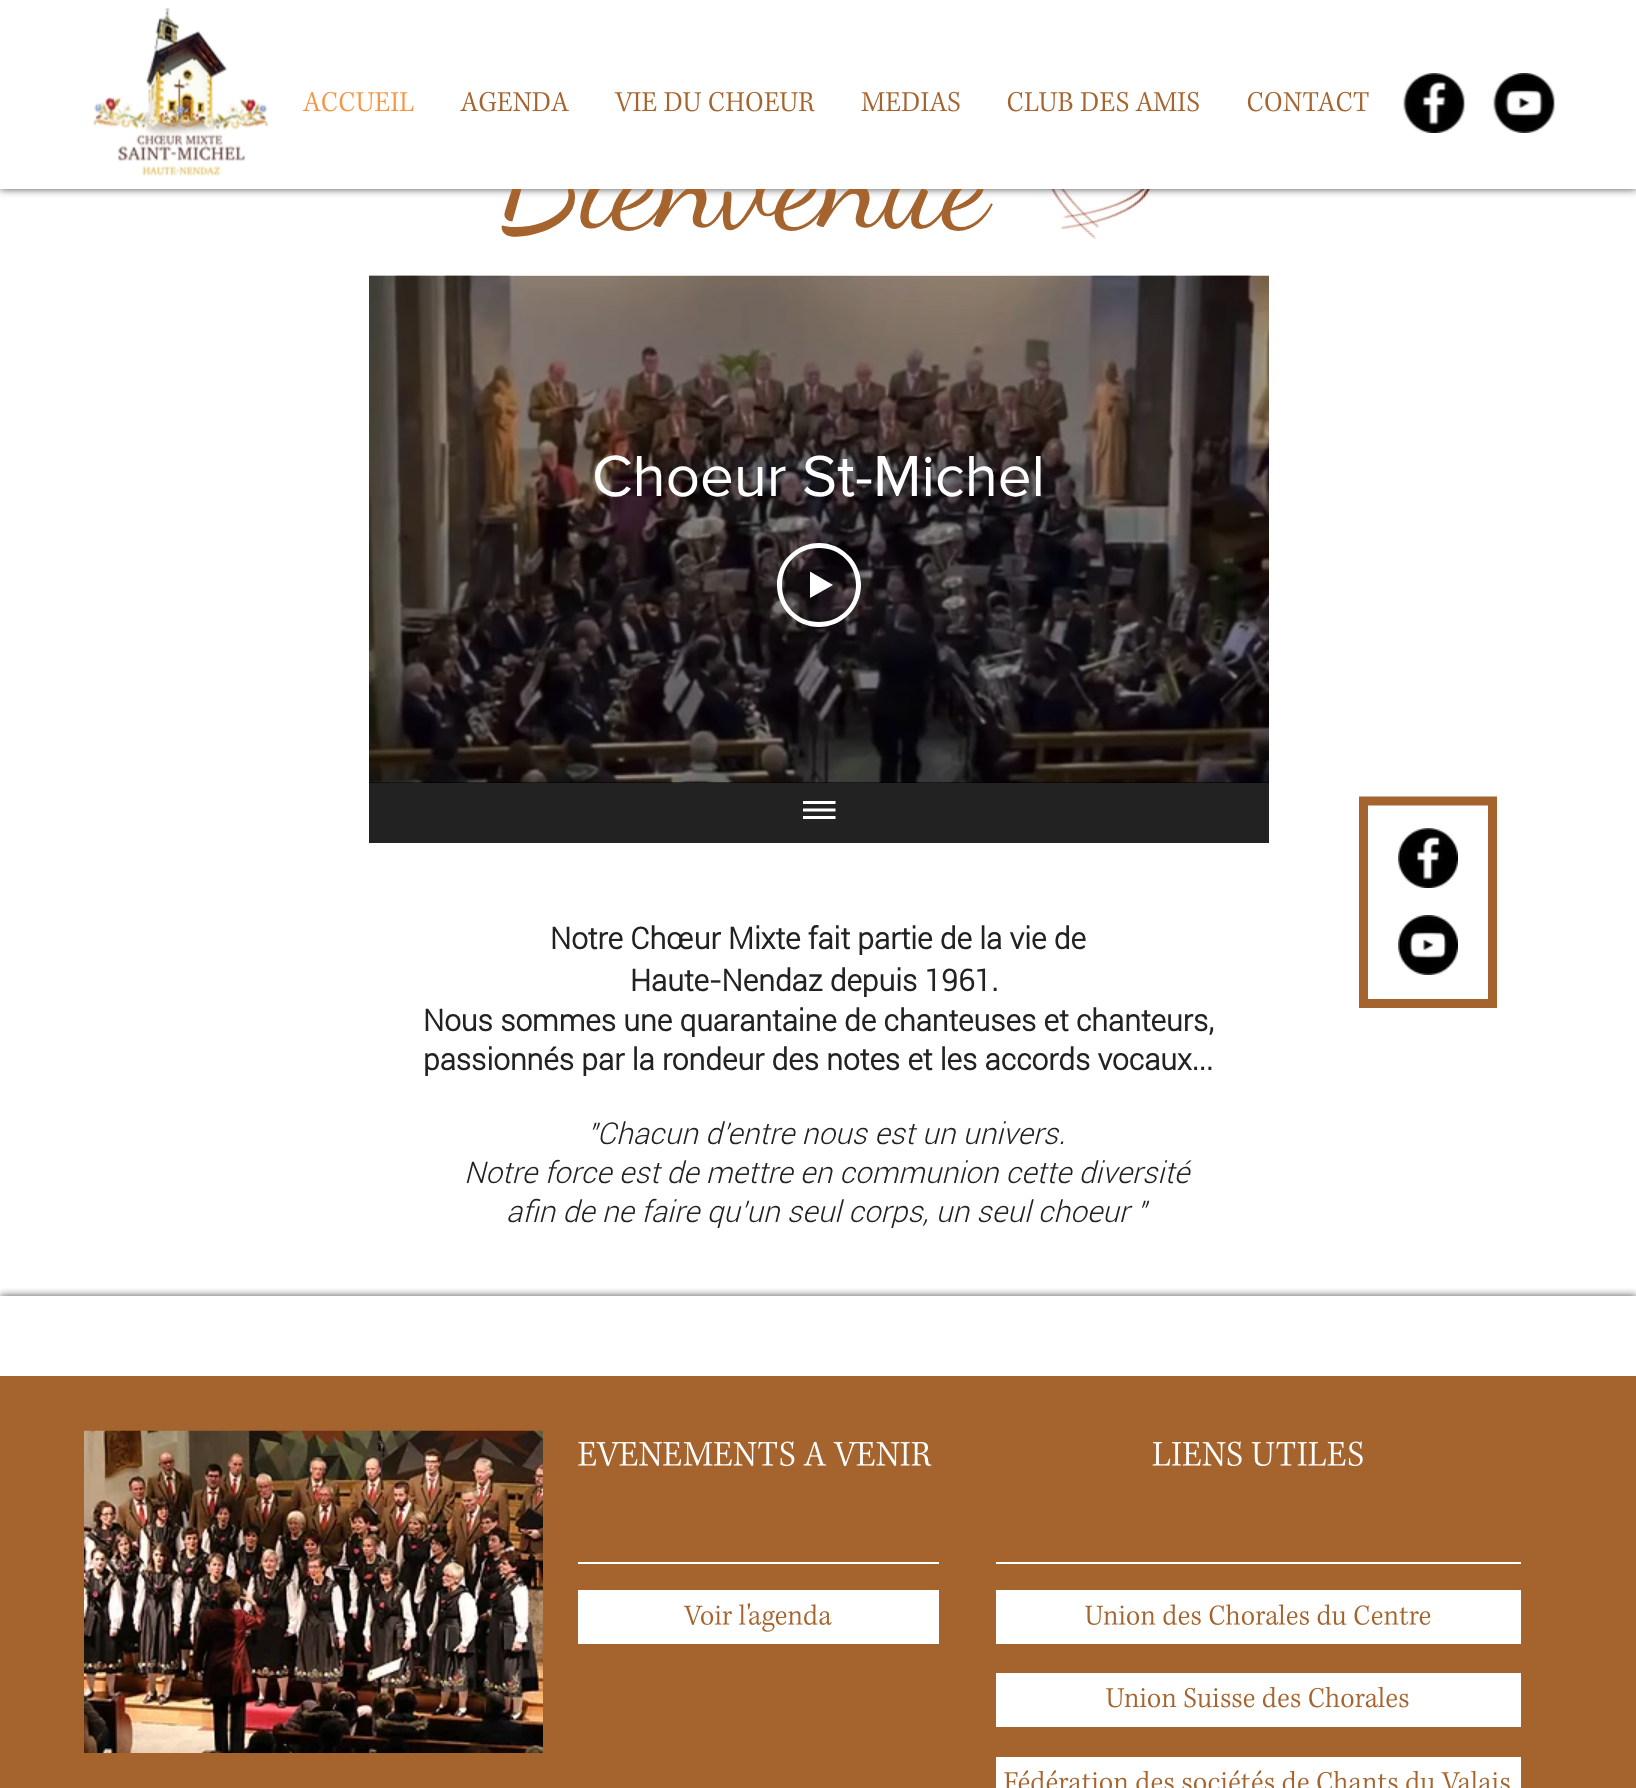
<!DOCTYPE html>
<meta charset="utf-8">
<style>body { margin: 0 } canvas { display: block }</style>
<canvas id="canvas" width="1636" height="1788"></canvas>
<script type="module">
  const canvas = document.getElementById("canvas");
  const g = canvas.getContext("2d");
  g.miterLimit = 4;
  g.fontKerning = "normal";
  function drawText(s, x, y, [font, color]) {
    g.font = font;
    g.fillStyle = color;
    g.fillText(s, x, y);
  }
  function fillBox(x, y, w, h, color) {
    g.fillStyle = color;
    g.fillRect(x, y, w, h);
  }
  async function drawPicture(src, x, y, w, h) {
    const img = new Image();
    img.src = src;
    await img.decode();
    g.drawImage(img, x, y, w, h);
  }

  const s1 = ["135px Dancing Script", "#A5632D"];
  const s2 = ["60px 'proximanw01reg'", "#FFFFFF"];
  const s3 = ["bold 30px Roboto", "#222222"];
  const s4 = ["italic 300 30px Roboto", "#222222"];

  fillBox(0, 0, 1636, 1788, "#FFFFFF");
  await drawPicture("pic10.png", 1051, 189, 100, 50);
  g.fillStyle = "rgba(0, 0, 0, 0.7)";
  g.filter = "blur(4px)";
  g.beginPath();
  g.rect(0, 0, 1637, 189);
  g.fill();
  g.filter = "none";
  drawText("Bienvenue", 499, 225, s1);
  fillBox(0, 0, 1636, 189, "#FFFFFF");
  await drawPicture("pic1.png", 92, 8, 177, 168);
  await drawPicture("pic2.png", 302, 91, 112, 21);
  await drawPicture("pic3.png", 460, 91, 109, 21);
  await drawPicture("pic4.png", 614, 91, 201, 21);
  await drawPicture("pic5.png", 861, 91, 99, 21);
  await drawPicture("pic6.png", 1007, 91, 192, 21);
  await drawPicture("pic7.png", 1247, 91, 122, 21);
  await drawPicture("pic8.png", 1403, 73, 62, 60);
  await drawPicture("pic9.png", 1493, 73, 62, 60);
  fillBox(369, 782, 900, 1, "#000000");
  await drawPicture("pic11.png", 369, 275, 900, 508);
  await drawPicture("pic12.png", 369, 275, 900, 508);
  drawText("Choeur St-Michel", 592, 496, s2);
  g.beginPath();
  g.moveTo(819, 622);
  g.bezierCurveTo(840, 622, 856, 606, 856, 585);
  g.bezierCurveTo(856, 564, 840, 548, 819, 548);
  g.bezierCurveTo(798, 548, 782, 564, 782, 585);
  g.bezierCurveTo(782, 606, 798, 622, 819, 622);
  g.closePath();
  g.moveTo(819, 627);
  g.bezierCurveTo(796, 627, 777, 608, 777, 585);
  g.bezierCurveTo(777, 562, 796, 543, 819, 543);
  g.bezierCurveTo(842, 543, 861, 562, 861, 585);
  g.bezierCurveTo(861, 608, 842, 627, 819, 627);
  g.closePath();
  g.fill("evenodd");
  g.beginPath();
  g.moveTo(833, 585);
  g.lineTo(810, 598);
  g.lineTo(810, 571.5);
  g.closePath();
  g.fill("evenodd");
  fillBox(369, 783, 900, 60, "#222222");
  g.save();
  g.beginPath();
  g.rect(803, 801, 33, 18);
  g.clip();
  g.fillStyle = "#FFFFFF";
  g.beginPath();
  g.moveTo(802.5, 811.5);
  g.lineTo(835.5, 811.5);
  g.lineTo(835.5, 808.5);
  g.lineTo(802.5, 808.5);
  g.closePath();
  g.moveTo(802.5, 819);
  g.lineTo(835.5, 819);
  g.lineTo(835.5, 816);
  g.lineTo(802.5, 816);
  g.closePath();
  g.moveTo(802.5, 804);
  g.lineTo(835.5, 804);
  g.lineTo(835.5, 801);
  g.lineTo(802.5, 801);
  g.closePath();
  g.fill("evenodd");
  g.restore();
  drawText("Notre Chœur Mixte fait partie de la vie de", 550, 949, s3);
  drawText("Haute-Nendaz depuis 1961.", 630, 991, s3);
  drawText("Nous sommes une quarantaine de chanteuses et chanteurs,", 423, 1031, s3);
  drawText("passionnés par la rondeur des notes et les accords vocaux...", 423, 1070, s3);
  drawText("\"Chacun d'entre nous est un univers.", 587, 1144, s4);
  drawText("Notre force est de mettre en communion cette diversité", 464, 1183, s4);
  drawText("afin de ne faire qu'un seul corps, un seul choeur \"", 506, 1222, s4);
  g.beginPath();
  g.moveTo(1492.5, 801);
  g.lineTo(1492.5, 1003.5);
  g.lineTo(1363.5, 1003.5);
  g.lineTo(1363.5, 801);
  g.closePath();
  g.strokeStyle = "#A5632D";
  g.lineWidth = 9;
  g.stroke();
  await drawPicture("pic13.png", 1398, 828, 60, 60);
  await drawPicture("pic14.png", 1398, 915, 60, 60);
  g.save();
  g.beginPath();
  g.rect(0, 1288, 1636, 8);
  g.clip();
  g.fillStyle = "rgba(0, 0, 0, 0.7)";
  g.filter = "blur(4px)";
  g.beginPath();
  g.rect(0, 1296, 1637, 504);
  g.fill();
  g.filter = "none";
  g.restore();
  fillBox(0, 1376, 1636, 412, "#A5632D");
  await drawPicture("pic15.png", 84, 1430, 459, 323);
  await drawPicture("pic16.png", 578, 1441, 354, 26);
  await drawPicture("pic17.png", 1152, 1441, 211, 26);
  fillBox(578, 1562, 361, 2, "#FFFFFF");
  fillBox(996, 1562, 525, 2, "#FFFFFF");
  fillBox(578, 1590, 361, 54, "#FFFFFF");
  await drawPicture("pic18.png", 683, 1603, 149, 29);
  fillBox(996, 1590, 525, 54, "#FFFFFF");
  await drawPicture("pic19.png", 1085, 1604, 346, 21);
  fillBox(996, 1673, 525, 54, "#FFFFFF");
  await drawPicture("pic20.png", 1106, 1686, 303, 22);
  fillBox(996, 1757, 525, 31, "#FFFFFF");
  await drawPicture("pic21.png", 1004, 1770, 506, 18);
</script>
